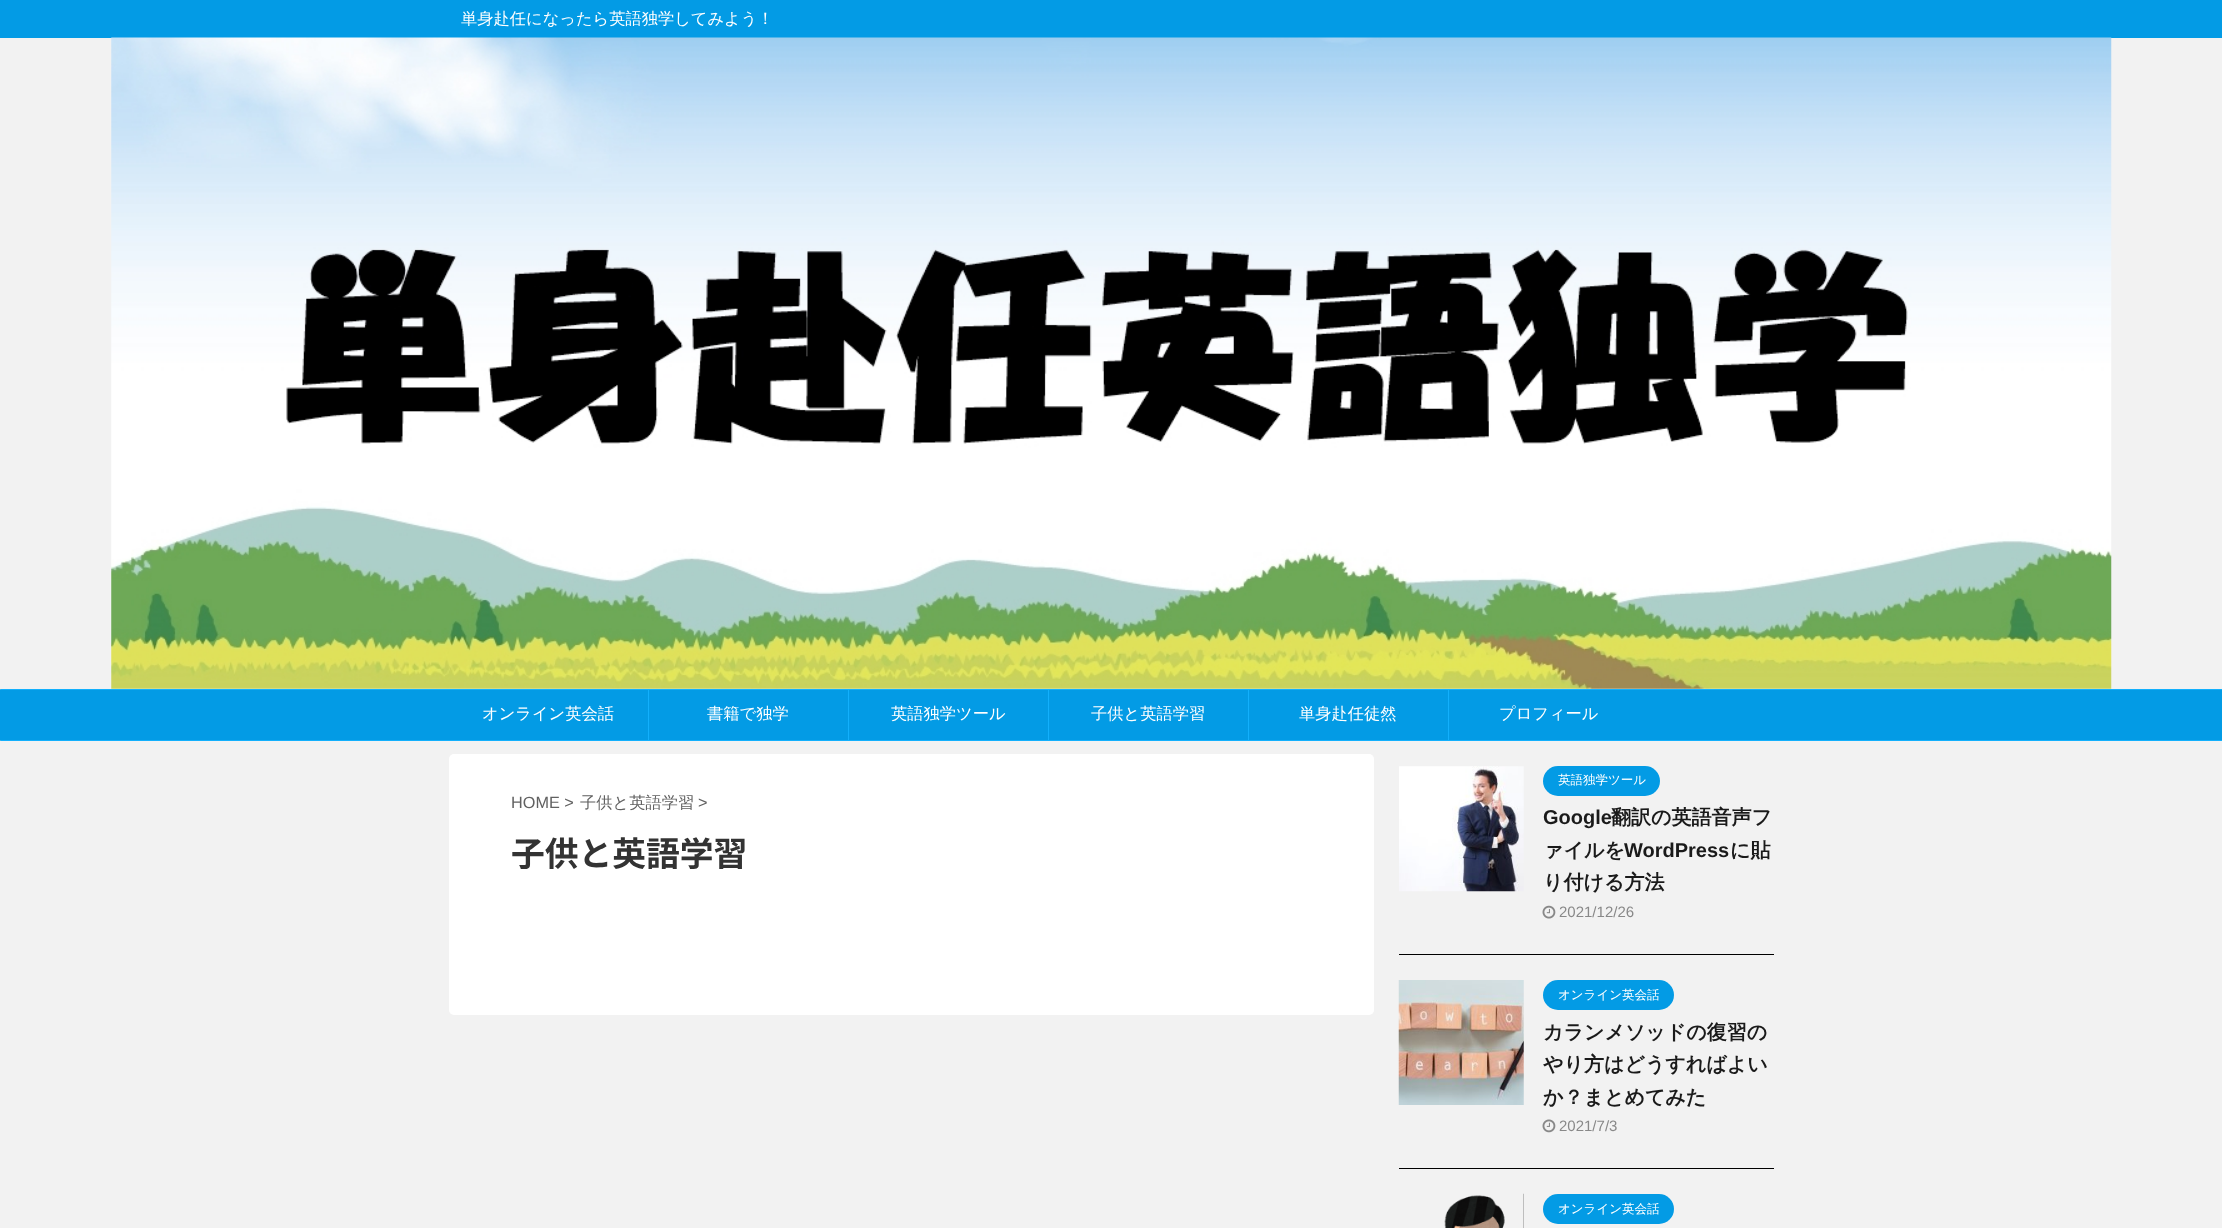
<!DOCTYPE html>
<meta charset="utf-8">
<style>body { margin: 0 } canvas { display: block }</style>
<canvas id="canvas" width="2222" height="1228"></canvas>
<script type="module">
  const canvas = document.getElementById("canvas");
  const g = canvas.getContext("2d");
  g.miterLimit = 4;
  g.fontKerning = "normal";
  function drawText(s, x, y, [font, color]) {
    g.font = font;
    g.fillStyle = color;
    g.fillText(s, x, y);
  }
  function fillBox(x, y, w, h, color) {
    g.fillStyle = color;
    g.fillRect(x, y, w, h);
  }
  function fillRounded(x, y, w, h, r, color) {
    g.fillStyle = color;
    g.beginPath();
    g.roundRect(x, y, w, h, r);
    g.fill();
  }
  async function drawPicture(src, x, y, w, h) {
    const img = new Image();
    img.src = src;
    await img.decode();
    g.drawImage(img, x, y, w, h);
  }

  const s1 = ["500 16.25px WenQuanYi Zen Hei", "#FFFFFF"];
  const s2 = ["16.25px Liberation Sans", "#616161"];
  const s3 = ["500 16.25px WenQuanYi Zen Hei", "#616161"];
  const s4 = ["bold 33.75px Noto Sans JP", "#333333"];
  const s5 = ["500 12.5px WenQuanYi Zen Hei", "#FFFFFF"];
  const s6 = ["bold 20px Liberation Sans", "#1A1A1A"];
  const s7 = ["bold 20px WenQuanYi Zen Hei", "#1A1A1A"];
  const s8 = ["15px Liberation Sans", "#888888"];

  fillBox(0, 0, 2222, 1228, "#F2F2F2");
  fillBox(0, 0, 2222, 38, "#039BE5");
  drawText("単身赴任になったら英語独学してみよう！", 461, 24, s1);
  await drawPicture("pic1.png", 111, 37, 2001, 652);
  fillRounded(0, 689, 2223, 52, 1, "#039BE5");
  fillBox(1, 689, 2221, 1, "#13B0FC");
  fillBox(1, 740, 2221, 1, "#13B0FC");
  fillBox(648, 690, 1, 50, "#13B0FC");
  drawText("オンライン英会話", 482, 719, s1);
  fillBox(848, 690, 1, 50, "#13B0FC");
  drawText("書籍で独学", 707, 719, s1);
  fillBox(1048, 690, 1, 50, "#13B0FC");
  drawText("英語独学ツール", 891, 719, s1);
  fillBox(1248, 690, 1, 50, "#13B0FC");
  drawText("子供と英語学習", 1091, 719, s1);
  fillBox(1448, 690, 1, 50, "#13B0FC");
  drawText("単身赴任徒然", 1299, 719, s1);
  drawText("プロフィール", 1499, 719, s1);
  fillRounded(449, 754, 925, 261, 5, "#FFFFFF");
  drawText("HOME >", 511, 808, s2);
  drawText("子供と英語学習", 580, 808, s3);
  drawText(">", 698, 808, s2);
  drawText("子供と英語学習", 511, 866, s4);
  fillBox(1399, 954, 375, 1, "#000000");
  await drawPicture("pic2.png", 1399, 766, 125, 126);
  fillRounded(1543, 766, 117, 30, 15, "#039BE5");
  drawText("英語独学ツール", 1558, 784, s5);
  drawText("Google", 1543, 824, s6);
  drawText("翻訳の英語音声フ", 1611, 824, s7);
  drawText("ァイルを", 1543, 857, s7);
  drawText("WordPress", 1624, 857, s6);
  drawText("に貼", 1730, 857, s7);
  drawText("り付ける方法", 1543, 889, s7);
  await drawPicture("pic3.png", 1542, 905, 14, 14);
  drawText("2021/12/26", 1559, 917, s8);
  fillBox(1399, 1168, 375, 1, "#000000");
  await drawPicture("pic4.png", 1398, 980, 126, 125);
  fillRounded(1543, 980, 131, 30, 15, "#039BE5");
  drawText("オンライン英会話", 1558, 999, s5);
  drawText("カランメソッドの復習の", 1543, 1039, s7);
  drawText("やり方はどうすればよい", 1543, 1071, s7);
  drawText("か？まとめてみた", 1543, 1104, s7);
  await drawPicture("pic5.png", 1542, 1119, 14, 14);
  drawText("2021/7/3", 1559, 1131, s8);
  await drawPicture("pic6.png", 1444, 1193, 80, 35);
  fillRounded(1543, 1194, 131, 30, 15, "#039BE5");
  drawText("オンライン英会話", 1558, 1213, s5);
</script>
